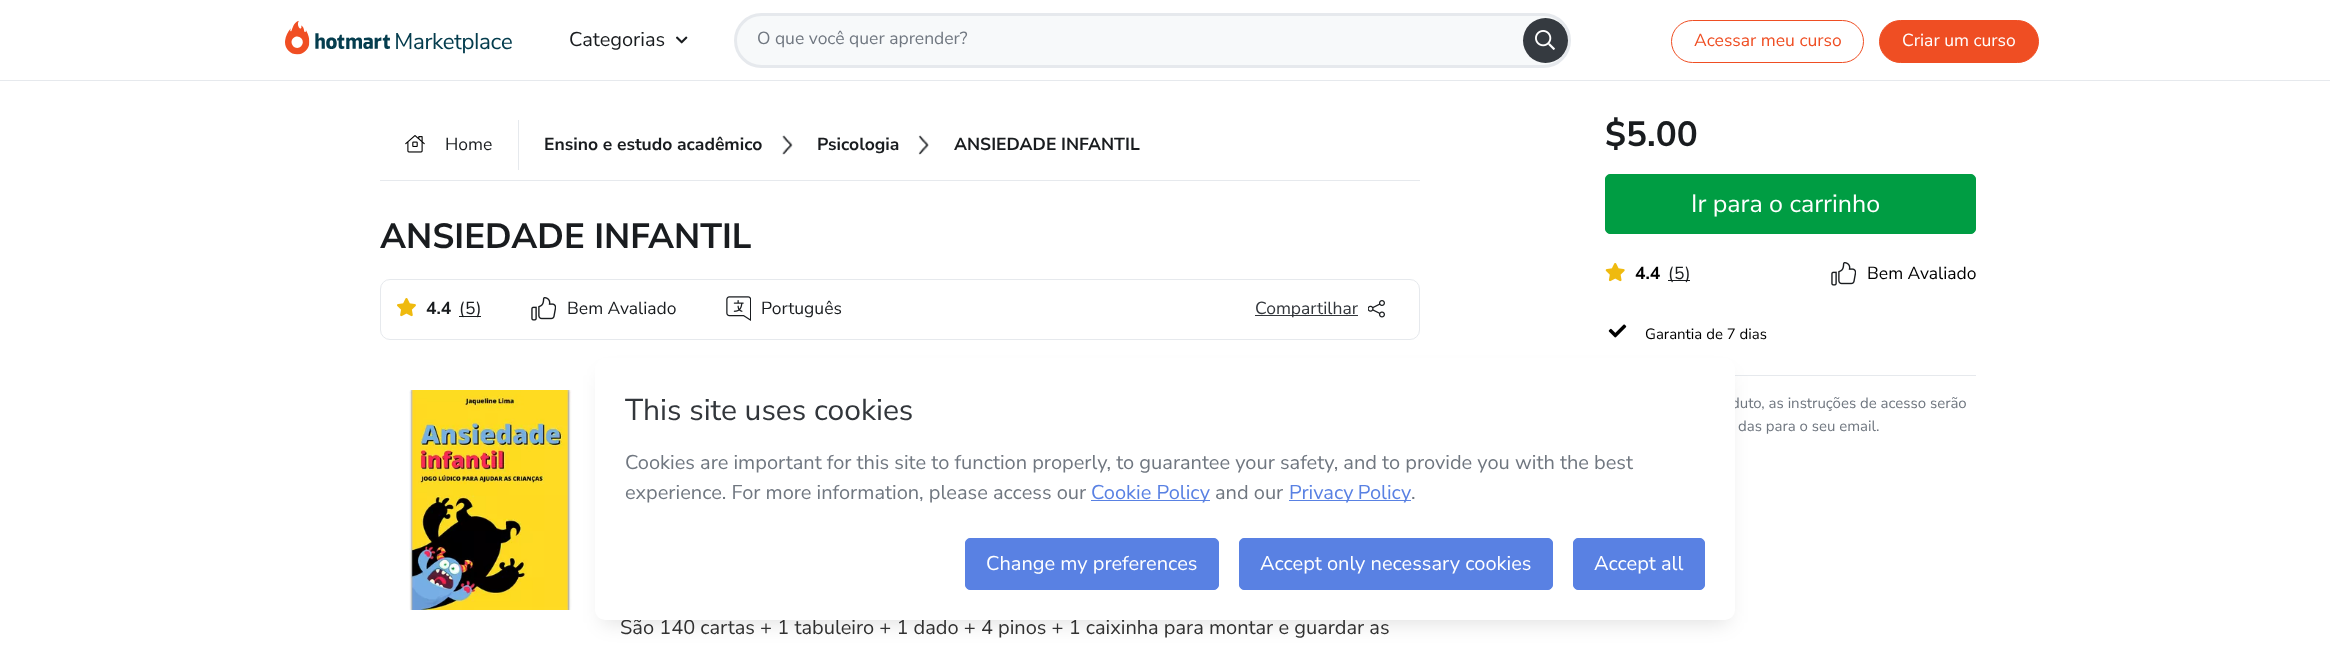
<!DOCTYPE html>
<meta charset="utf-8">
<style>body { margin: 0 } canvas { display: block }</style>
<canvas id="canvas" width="2330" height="650"></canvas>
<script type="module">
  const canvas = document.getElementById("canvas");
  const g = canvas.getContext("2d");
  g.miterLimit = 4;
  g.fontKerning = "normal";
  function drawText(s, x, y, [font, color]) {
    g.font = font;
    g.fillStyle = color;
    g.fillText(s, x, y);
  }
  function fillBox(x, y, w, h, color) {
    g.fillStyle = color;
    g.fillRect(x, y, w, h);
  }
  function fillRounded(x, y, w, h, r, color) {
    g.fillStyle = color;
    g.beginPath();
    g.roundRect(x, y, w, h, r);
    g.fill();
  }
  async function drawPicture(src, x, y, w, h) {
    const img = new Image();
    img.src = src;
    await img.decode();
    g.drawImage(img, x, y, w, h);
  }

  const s1 = ["20px Nunito Sans", "#191C1F"];
  const s2 = ["17.5px Nunito Sans", "#707780"];
  const s3 = ["17.5px Nunito Sans", "#EF4E23"];
  const s4 = ["17.5px Nunito Sans", "#FFFFFF"];
  const s5 = ["17.5px Nunito Sans", "#191C1F"];
  const s6 = ["bold 17.5px Nunito Sans", "#191C1F"];
  const s7 = ["bold 35px Nunito Sans", "#191C1F"];
  const s8 = ["17.5px Nunito Sans", "#32363B"];
  const s9 = ["20px Nunito Sans", "#333333"];
  const s10 = ["25px Nunito Sans", "#FFFFFF"];
  const s11 = ["bold 17.5px Nunito Sans", "#000000"];
  const s12 = ["17.5px Nunito Sans", "#000000"];
  const s13 = ["15px Nunito Sans", "#000000"];
  const s14 = ["15px Nunito Sans", "#707780"];
  const s15 = ["30px Nunito Sans", "#32363B"];
  const s16 = ["20px Nunito Sans", "#707780"];
  const s17 = ["20px Nunito Sans", "#5981E3"];
  const s18 = ["20px Nunito Sans", "#FFFFFF"];

  fillBox(0, 0, 2330, 650, "#FFFFFF");
  fillBox(0, 80, 2330, 1, "#E6E9ED");
  await drawPicture("pic1.png", 285, 20, 227, 35);
  drawText("Categorias", 569, 46, s1);
  await drawPicture("pic2.png", 676, 36, 12, 8);
  g.fillStyle = "#F7F9FA";
  g.beginPath();
  g.roundRect(735.5, 14.5, 834, 52, 26);
  g.fill();
  g.strokeStyle = "#E6E9ED";
  g.lineWidth = 3;
  g.stroke();
  drawText("O que você quer aprender?", 757, 44, s2);
  g.fillStyle = "#353A40";
  g.beginPath();
  g.arc(1545.5, 40.5, 22.5, 0, Math.PI * 2);
  g.fill();
  await drawPicture("pic3.png", 1535, 30, 20, 20);
  g.beginPath();
  g.roundRect(1671.5, 20.5, 192, 42, 21);
  g.strokeStyle = "#EF4E23";
  g.lineWidth = 1;
  g.stroke();
  drawText("Acessar meu curso", 1694, 46, s3);
  g.beginPath();
  g.roundRect(1879.5, 20.5, 159, 42, 21);
  g.fill();
  g.stroke();
  drawText("Criar um curso", 1902, 46, s4);
  fillBox(380, 180, 1040, 1, "#E6E9ED");
  fillBox(518, 120, 1, 50, "#E6E9ED");
  await drawPicture("pic4.png", 405, 135, 20, 18);
  drawText("Home", 445, 150, s5);
  drawText("Ensino e estudo acadêmico", 544, 150, s6);
  await drawPicture("pic5.png", 782, 135, 11, 20);
  drawText("Psicologia", 817, 150, s6);
  await drawPicture("pic6.png", 918, 135, 11, 20);
  drawText("ANSIEDADE INFANTIL", 954, 150, s6);
  drawText("ANSIEDADE INFANTIL", 380, 248, s7);
  g.beginPath();
  g.roundRect(380.5, 279.5, 1039, 60, 9.5);
  g.strokeStyle = "#E6E9ED";
  g.stroke();
  await drawPicture("pic7.png", 397, 298, 19, 19);
  drawText("4.4", 426, 314, s6);
  fillBox(459, 316, 22, 1, "#191C1F");
  g.letterSpacing = "0.5px";
  drawText("(5)", 459, 314, s5);
  await drawPicture("pic8.png", 531, 297, 25, 24);
  g.letterSpacing = "0px";
  drawText("Bem Avaliado", 567, 314, s5);
  await drawPicture("pic9.png", 726, 296, 25, 25);
  drawText("Português", 761, 314, s5);
  fillBox(1255, 315, 103, 1, "#32363B");
  drawText("Compartilhar", 1255, 314, s8);
  await drawPicture("pic10.png", 1368, 300, 17, 18);
  await drawPicture("pic11.png", 409, 390, 163, 220);
  drawText("São 140 cartas + 1 tabuleiro + 1 dado + 4 pinos + 1 caixinha para montar e guardar as", 620, 634, s9);
  drawText("$5.00", 1605, 146, s7);
  g.fillStyle = "#009D43";
  g.beginPath();
  g.roundRect(1605.5, 174.5, 370, 59, 4.5);
  g.fill();
  g.strokeStyle = "#009D43";
  g.stroke();
  drawText("Ir para o carrinho", 1691, 212, s10);
  await drawPicture("pic12.png", 1605, 263, 20, 19);
  drawText("4.4", 1635, 279, s11);
  fillBox(1668, 280, 22, 1, "#191C1F");
  g.letterSpacing = "0.5px";
  drawText("(5)", 1668, 279, s5);
  await drawPicture("pic8.png", 1831, 262, 25, 24);
  g.letterSpacing = "0px";
  drawText("Bem Avaliado", 1867, 279, s12);
  await drawPicture("pic13.png", 1608, 324, 19, 14);
  drawText("Garantia de 7 dias", 1645, 339, s13);
  fillBox(1735, 375, 241, 1, "#E6E9ED");
  drawText("duto, as instruções de acesso serão", 1731, 408, s14);
  drawText("das para o seu email.", 1738, 431, s14);
  g.fillStyle = "rgba(0, 0, 0, 0.12)";
  g.filter = "blur(10px)";
  g.beginPath();
  g.roundRect(603, 375, 1125, 248, 2.5);
  g.fill();
  g.filter = "none";
  fillRounded(595, 358, 1140, 262, 10, "#FFFFFF");
  drawText("This site uses cookies", 625, 420, s15);
  drawText("Cookies are important for this site to function properly, to guarantee your safety, and to provide you with the best", 625, 469, s16);
  drawText("experience. For more information, please access our", 625, 499, s16);
  fillBox(1091, 500, 119, 1, "#5981E3");
  drawText("Cookie Policy", 1091, 499, s17);
  drawText("and our", 1215, 499, s16);
  fillBox(1289, 500, 122, 1, "#5981E3");
  g.wordSpacing = "-1px";
  drawText("Privacy Policy", 1289, 499, s17);
  g.wordSpacing = "0px";
  drawText(".", 1411, 499, s16);
  g.fillStyle = "#5981E3";
  g.beginPath();
  g.roundRect(965.5, 538.5, 253, 51, 4.5);
  g.fill();
  g.strokeStyle = "#5981E3";
  g.stroke();
  drawText("Change my preferences", 986, 570, s18);
  g.fillStyle = "#5981E3";
  g.beginPath();
  g.roundRect(1239.5, 538.5, 313, 51, 4.5);
  g.fill();
  g.stroke();
  drawText("Accept only necessary cookies", 1260, 570, s18);
  g.fillStyle = "#5981E3";
  g.beginPath();
  g.roundRect(1573.5, 538.5, 131, 51, 4.5);
  g.fill();
  g.stroke();
  drawText("Accept all", 1594, 570, s18);
</script>
